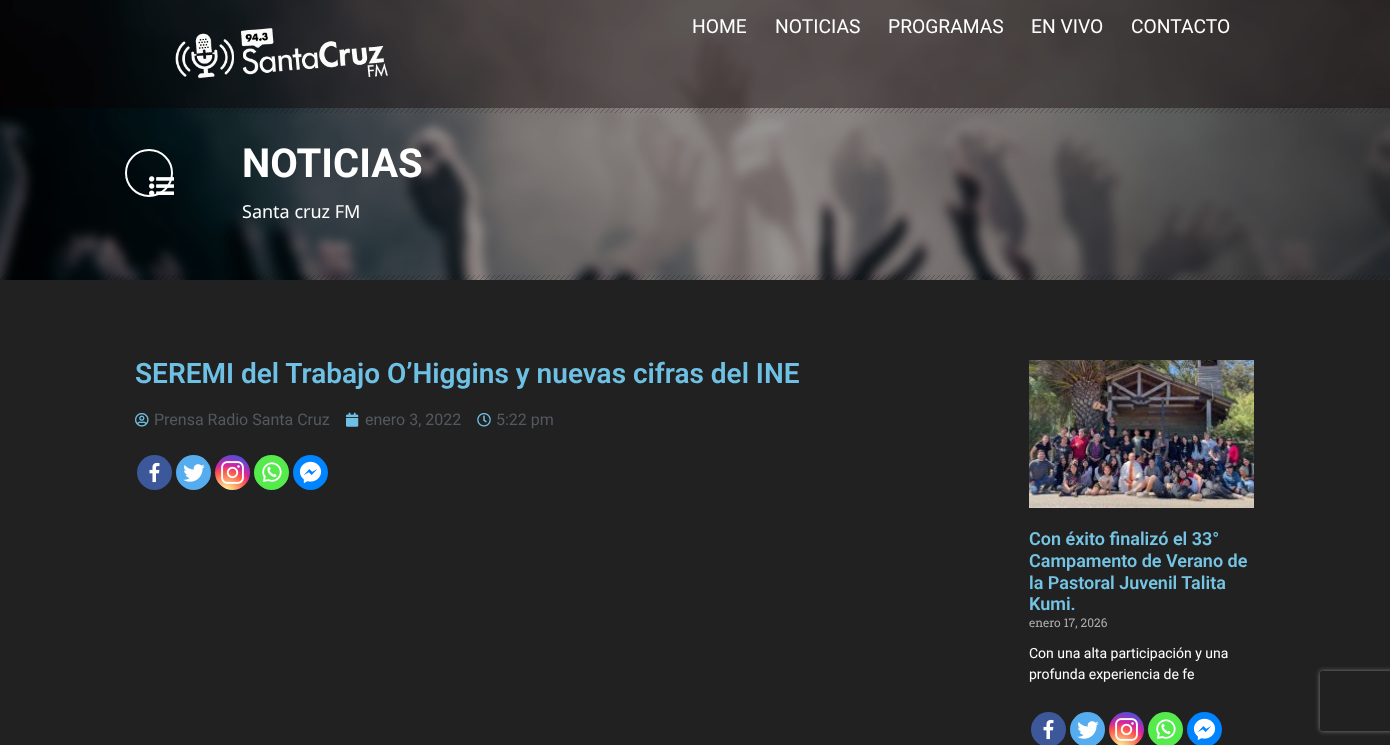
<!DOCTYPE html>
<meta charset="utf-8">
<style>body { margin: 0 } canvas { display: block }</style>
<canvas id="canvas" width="1390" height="745"></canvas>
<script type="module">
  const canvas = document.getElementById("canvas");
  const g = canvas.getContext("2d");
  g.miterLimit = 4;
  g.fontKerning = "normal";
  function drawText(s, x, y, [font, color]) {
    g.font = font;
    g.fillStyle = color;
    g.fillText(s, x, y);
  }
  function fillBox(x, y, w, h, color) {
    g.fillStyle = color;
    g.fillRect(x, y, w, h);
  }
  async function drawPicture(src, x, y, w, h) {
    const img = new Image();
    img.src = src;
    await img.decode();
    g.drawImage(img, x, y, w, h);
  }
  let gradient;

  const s1 = ["19.25px Roboto", "#FFFFFF"];
  const s2 = ["bold 40px Roboto", "#FFFFFF"];
  const s3 = ["18px Noto Sans", "#FFFFFF"];
  const s4 = ["600 28px Roboto", "#6EC1E4"];
  const s5 = ["16px Roboto", "#54595F"];
  const s6 = ["600 18px Roboto", "#75C4E4"];
  const s7 = ["12px Roboto Slab", "#ADADAD"];
  const s8 = ["14px Roboto", "#FFFFFF"];

  fillBox(0, 0, 1390, 745, "#212121");
  await drawPicture("pic3.png", 0, 0, 1390, 280);
  fillBox(0, 0, 1390, 108, "rgba(10, 0, 0, 0.4)");
  drawText("HOME", 692, 33, s1);
  drawText("NOTICIAS", 775, 33, s1);
  drawText("PROGRAMAS", 888, 33, s1);
  drawText("EN VIVO", 1031, 33, s1);
  drawText("CONTACTO", 1131, 33, s1);
  await drawPicture("pic1.png", 175, 28, 213, 51);
  await drawPicture("pic2.png", 115, 108, 1275, 5);
  g.beginPath();
  g.arc(149, 173, 23, 0, Math.PI * 2);
  g.strokeStyle = "#FFFFFF";
  g.lineWidth = 2;
  g.stroke();
  await drawPicture("pic4.png", 149, 176, 25, 19);
  drawText("NOTICIAS", 242, 177, s2);
  drawText("Santa cruz FM", 242, 218, s3);
  await drawPicture("pic5.png", 0, 275, 1390, 5);
  drawText("SEREMI del Trabajo O’Higgins y nuevas cifras del INE", 135, 383, s4);
  await drawPicture("pic6.png", 135, 413, 14, 14);
  drawText("Prensa Radio Santa Cruz", 154, 425, s5);
  await drawPicture("pic7.png", 346, 412, 13, 15);
  drawText("enero 3, 2022", 365, 425, s5);
  await drawPicture("pic8.png", 477, 413, 14, 14);
  drawText("5:22 pm", 496, 425, s5);
  g.fillStyle = "#3C589A";
  g.beginPath();
  g.arc(154.5, 472.5, 17.5, 0, Math.PI * 2);
  g.fill();
  await drawPicture("pic9.png", 149, 462, 11, 21);
  g.fillStyle = "#55ACEE";
  g.beginPath();
  g.arc(193.5, 472.5, 17.5, 0, Math.PI * 2);
  g.fill();
  await drawPicture("pic10.png", 183, 464, 22, 18);
  gradient = g.createRadialGradient(226, 492, 0, 226, 492, 45);
  gradient.addColorStop(0, "#FDF497");
  gradient.addColorStop(0.05, "#FDF497");
  gradient.addColorStop(0.45, "#FD5949");
  gradient.addColorStop(0.6, "#D6249F");
  gradient.addColorStop(0.9, "#285AEB");
  g.fillStyle = gradient;
  g.beginPath();
  g.arc(232.5, 472.5, 17.5, 0, Math.PI * 2);
  g.fill();
  await drawPicture("pic11.png", 221, 461, 23, 23);
  g.fillStyle = "#55EB4C";
  g.beginPath();
  g.arc(271.5, 472.5, 17.5, 0, Math.PI * 2);
  g.fill();
  await drawPicture("pic12.png", 262, 462, 20, 20);
  g.fillStyle = "#0084FF";
  g.beginPath();
  g.arc(310.5, 472.5, 17.5, 0, Math.PI * 2);
  g.fill();
  await drawPicture("pic13.png", 299, 461, 23, 23);
  await drawPicture("pic14.png", 1029, 360, 225, 148);
  drawText("Con éxito finalizó el 33°", 1029, 545, s6);
  drawText("Campamento de Verano de", 1029, 567, s6);
  drawText("la Pastoral Juvenil Talita", 1029, 589, s6);
  drawText("Kumi.", 1029, 610, s6);
  drawText("enero 17, 2026", 1029, 627, s7);
  drawText("Con una alta participación y una", 1029, 658, s8);
  drawText("profunda experiencia de fe", 1029, 679, s8);
  g.fillStyle = "#3C589A";
  g.beginPath();
  g.arc(1048.5, 729.5, 17.5, 0, Math.PI * 2);
  g.fill();
  await drawPicture("pic9.png", 1043, 719, 11, 21);
  g.fillStyle = "#55ACEE";
  g.beginPath();
  g.arc(1087.5, 729.5, 17.5, 0, Math.PI * 2);
  g.fill();
  await drawPicture("pic10.png", 1077, 721, 22, 18);
  gradient = g.createRadialGradient(1120, 749, 0, 1120, 749, 45);
  gradient.addColorStop(0, "#FDF497");
  gradient.addColorStop(0.05, "#FDF497");
  gradient.addColorStop(0.45, "#FD5949");
  gradient.addColorStop(0.6, "#D6249F");
  gradient.addColorStop(0.9, "#285AEB");
  g.fillStyle = gradient;
  g.beginPath();
  g.arc(1126.5, 729.5, 17.5, 0, Math.PI * 2);
  g.fill();
  await drawPicture("pic11.png", 1115, 718, 23, 23);
  g.fillStyle = "#55EB4C";
  g.beginPath();
  g.arc(1165.5, 729.5, 17.5, 0, Math.PI * 2);
  g.fill();
  await drawPicture("pic12.png", 1156, 719, 20, 20);
  g.fillStyle = "#0084FF";
  g.beginPath();
  g.arc(1204.5, 729.5, 17.5, 0, Math.PI * 2);
  g.fill();
  await drawPicture("pic13.png", 1193, 718, 23, 23);
  g.save();
  g.beginPath();
  g.moveTo(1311, 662);
  g.lineTo(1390, 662);
  g.lineTo(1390, 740);
  g.lineTo(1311, 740);
  g.closePath();
  g.moveTo(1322, 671);
  g.lineTo(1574, 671);
  g.bezierCurveTo(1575, 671, 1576, 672, 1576, 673);
  g.lineTo(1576, 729);
  g.bezierCurveTo(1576, 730, 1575, 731, 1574, 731);
  g.lineTo(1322, 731);
  g.bezierCurveTo(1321, 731, 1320, 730, 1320, 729);
  g.lineTo(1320, 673);
  g.bezierCurveTo(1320, 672, 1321, 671, 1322, 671);
  g.closePath();
  g.clip("evenodd");
  g.fillStyle = "#808080";
  g.filter = "blur(2.5px)";
  g.beginPath();
  g.roundRect(1320, 671, 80, 60, 2);
  g.fill();
  g.filter = "none";
  g.restore();
</script>
